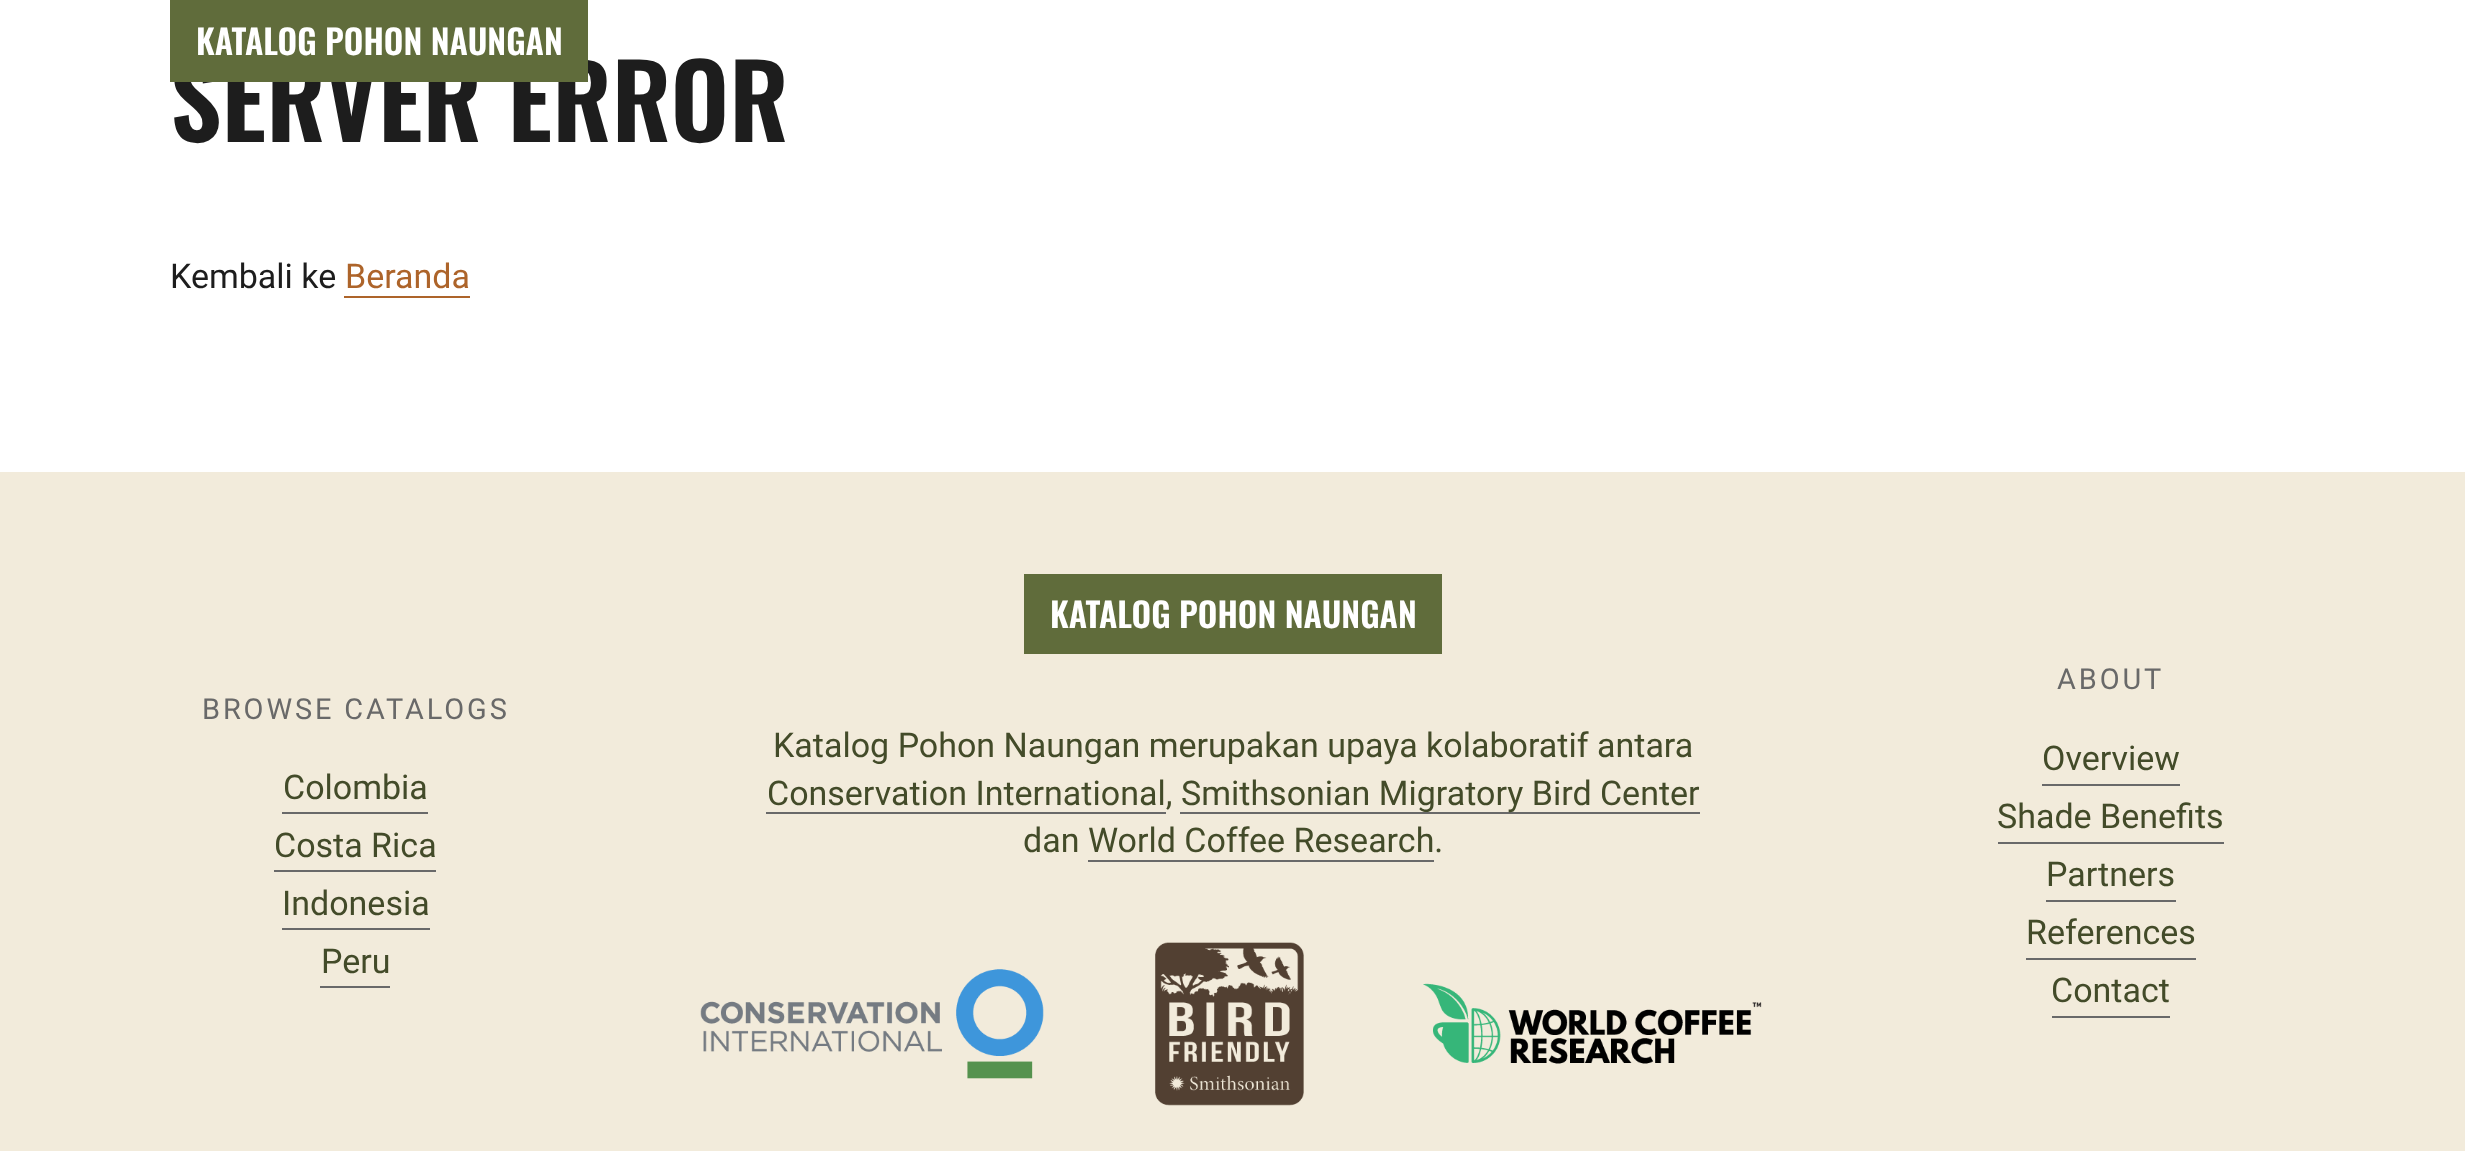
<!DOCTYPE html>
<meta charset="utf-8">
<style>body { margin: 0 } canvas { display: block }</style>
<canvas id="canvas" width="2465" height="1151"></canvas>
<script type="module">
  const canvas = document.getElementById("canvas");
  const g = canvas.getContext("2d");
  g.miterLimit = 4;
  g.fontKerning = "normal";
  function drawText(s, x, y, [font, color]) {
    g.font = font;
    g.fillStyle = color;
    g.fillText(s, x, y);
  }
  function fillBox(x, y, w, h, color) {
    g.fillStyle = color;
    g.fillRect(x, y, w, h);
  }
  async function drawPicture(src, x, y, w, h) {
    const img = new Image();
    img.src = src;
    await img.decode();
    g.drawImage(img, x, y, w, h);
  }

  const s1 = ["600 102px Oswald", "#1D1D1D"];
  const s2 = ["600 34px Oswald", "#FFFFFF"];
  const s3 = ["34px Roboto", "#1D1D1D"];
  const s4 = ["34px Roboto", "#AD642A"];
  const s5 = ["28.9px Roboto", "#696969"];
  const s6 = ["34px Roboto", "#434B29"];

  fillBox(0, 0, 2465, 1151, "#FFFFFF");
  drawText("SERVER ERROR", 170, 142, s1);
  fillBox(170, 0, 418, 82, "#606C3B");
  drawText("KATALOG POHON NAUNGAN", 196, 55, s2);
  drawText("Kembali ke", 170, 288, s3);
  drawText("Beranda", 345, 288, s4);
  fillBox(344, 296, 126, 2, "#AD642A");
  fillBox(0, 472, 2465, 679, "#F2EBDB");
  g.letterSpacing = "2.9px";
  drawText("BROWSE CATALOGS", 202, 719, s5);
  fillBox(282, 812, 146, 2, "#696969");
  g.letterSpacing = "0px";
  drawText("Colombia", 283, 799, s6);
  fillBox(274, 870, 162, 2, "#696969");
  drawText("Costa Rica", 274, 857, s6);
  fillBox(282, 928, 148, 2, "#696969");
  drawText("Indonesia", 282, 915, s6);
  fillBox(320, 986, 70, 2, "#696969");
  drawText("Peru", 321, 973, s6);
  fillBox(1024, 574, 418, 80, "#606C3B");
  drawText("KATALOG POHON NAUNGAN", 1050, 628, s2);
  drawText("Katalog Pohon Naungan merupakan upaya kolaboratif antara", 773, 757, s6);
  drawText("Conservation International,", 767, 805, s6);
  fillBox(766, 812, 400, 2, "#696969");
  fillBox(1180, 812, 520, 2, "#696969");
  drawText("Smithsonian Migratory Bird Center", 1181, 805, s6);
  drawText("dan World Coffee Research.", 1023, 852, s6);
  fillBox(1088, 860, 346, 2, "#696969");
  await drawPicture("pic1.png", 700, 969, 344, 110);
  await drawPicture("pic2.png", 1155, 942, 149, 164);
  await drawPicture("pic3.png", 1423, 983, 339, 81);
  g.letterSpacing = "2.9px";
  drawText("ABOUT", 2057, 689, s5);
  fillBox(2042, 784, 138, 2, "#696969");
  g.letterSpacing = "0px";
  drawText("Overview", 2042, 770, s6);
  fillBox(1998, 842, 226, 2, "#696969");
  drawText("Shade Benefits", 1997, 828, s6);
  fillBox(2046, 900, 130, 2, "#696969");
  drawText("Partners", 2046, 886, s6);
  fillBox(2026, 958, 170, 2, "#696969");
  drawText("References", 2026, 944, s6);
  fillBox(2052, 1016, 118, 2, "#696969");
  drawText("Contact", 2051, 1002, s6);
</script>
